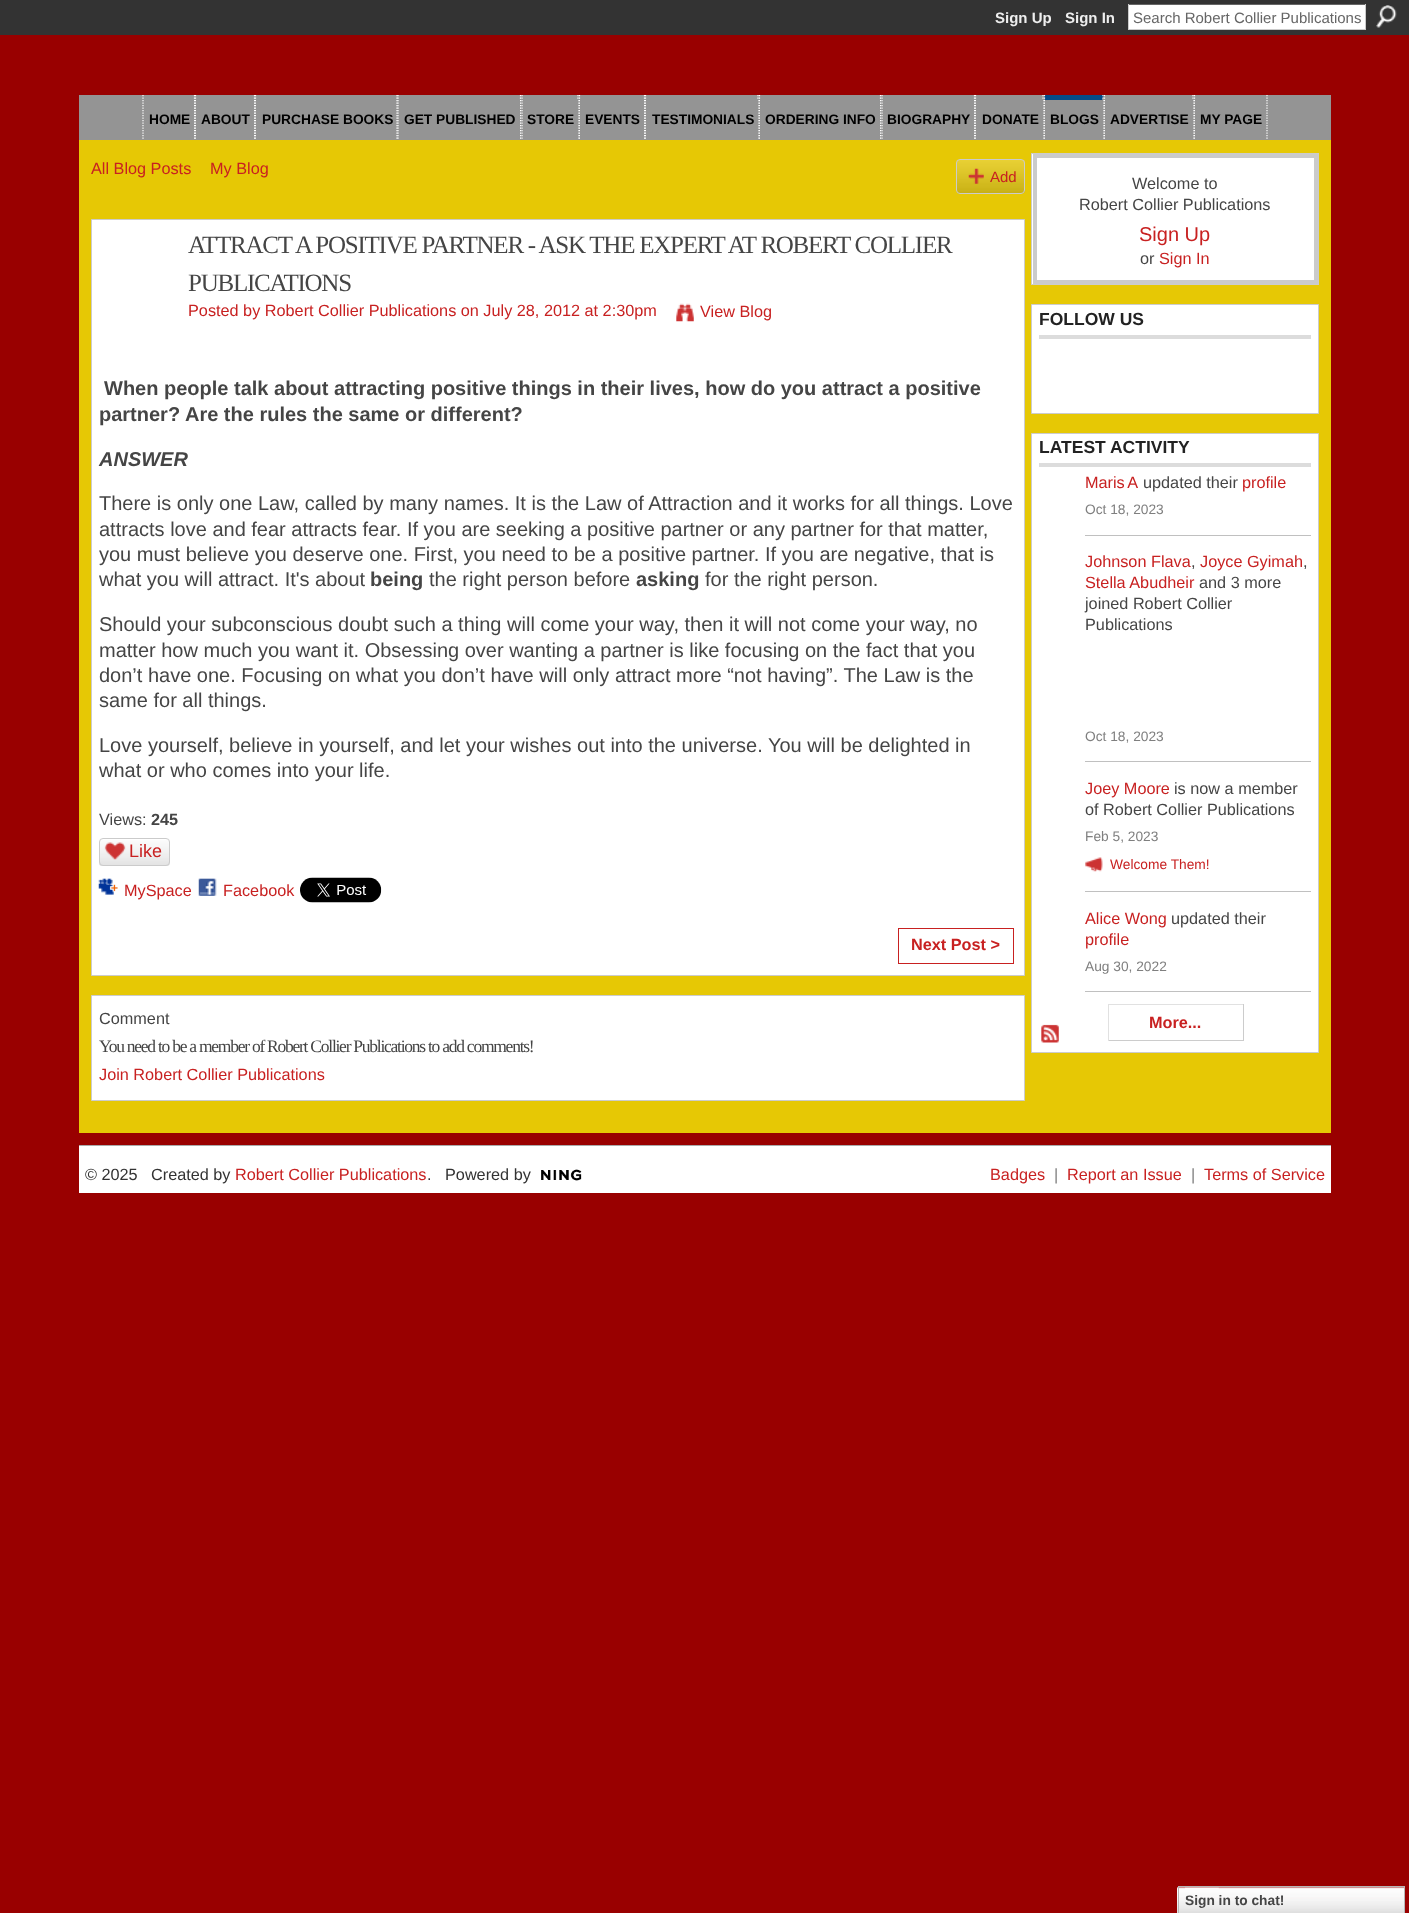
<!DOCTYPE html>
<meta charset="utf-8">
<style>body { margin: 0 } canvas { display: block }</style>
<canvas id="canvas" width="1409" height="1913"></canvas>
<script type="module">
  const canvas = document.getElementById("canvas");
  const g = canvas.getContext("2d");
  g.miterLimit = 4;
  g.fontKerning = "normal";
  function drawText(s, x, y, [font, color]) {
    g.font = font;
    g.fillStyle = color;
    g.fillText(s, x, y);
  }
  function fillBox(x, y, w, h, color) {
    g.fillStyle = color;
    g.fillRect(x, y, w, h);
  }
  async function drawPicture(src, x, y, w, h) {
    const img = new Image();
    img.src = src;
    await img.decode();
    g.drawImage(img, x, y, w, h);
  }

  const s1 = ["bold 15px Liberation Sans", "#EEEEEE"];
  const s2 = ["15px Liberation Sans", "#666666"];
  const s3 = ["bold 13.75px Liberation Sans", "#000000"];
  const s4 = ["16.25px Liberation Sans", "#C82121"];
  const s5 = ["15px Liberation Sans", "#C82121"];
  const s6 = ["25px Liberation Serif", "#454545"];
  const s7 = ["bold 20px Liberation Sans", "#454545"];
  const s8 = ["italic bold 20px Liberation Sans", "#454545"];
  const s9 = ["20px Liberation Sans", "#454545"];
  const s10 = ["16.25px Liberation Sans", "#454545"];
  const s11 = ["bold 16.25px Liberation Sans", "#454545"];
  const s12 = ["18px Liberation Sans", "#C82121"];
  const s13 = ["bold 16.25px Liberation Sans", "#C82121"];
  const s14 = ["17.5px Liberation Serif", "#454545"];
  const s15 = ["20px Liberation Sans", "#C82121"];
  const s16 = ["bold 17.5px Liberation Sans", "#222222"];
  const s17 = ["13.75px Liberation Sans", "#7F7F7F"];
  const s18 = ["13.75px Liberation Sans", "#C82121"];
  const s19 = ["16.25px Liberation Sans", "#333333"];
  const s20 = ["16.25px Liberation Sans", "#7F7F7F"];
  const s21 = ["bold 13.75px Liberation Sans", "#454545"];

  fillBox(0, 0, 1409, 1913, "#990000");
  fillBox(0, 0, 1409, 35, "#333333");
  drawText("Sign Up", 995, 23, s1);
  drawText("Sign In", 1065, 23, s1);
  fillBox(1129, 5, 236, 24, "#FFFFFF");
  fillBox(1128, 4, 238, 1, "#666666");
  fillBox(1365, 4, 1, 26, "#CCCCCC");
  fillBox(1128, 29, 238, 1, "#CCCCCC");
  fillBox(1128, 4, 1, 26, "#CCCCCC");
  drawText("Search Robert Collier Publications", 1133, 23, s2);
  await drawPicture("pic1.png", 1376, 5, 21, 23);
  fillBox(79, 95, 1252, 45, "#949494");
  g.beginPath();
  g.moveTo(194.5, 95);
  g.lineTo(194.5, 139);
  g.moveTo(143, 95);
  g.lineTo(143, 139);
  g.strokeStyle = "#FFFFFF";
  g.lineWidth = 1.2;
  g.setLineDash([1.25, 1.25]);
  g.stroke();
  fillBox(193, 100, 1, 39, "#949494");
  drawText("HOME", 149, 124, s3);
  fillBox(195, 95, 1, 44, "#949494");
  g.beginPath();
  g.moveTo(254.5, 95);
  g.lineTo(254.5, 139);
  g.moveTo(195.5, 95);
  g.lineTo(195.5, 139);
  g.stroke();
  fillBox(196, 100, 58, 39, "#949494");
  drawText("ABOUT", 201, 124, s3);
  fillBox(255, 95, 1, 44, "#949494");
  g.beginPath();
  g.moveTo(397, 95);
  g.lineTo(397, 139);
  g.stroke();
  g.beginPath();
  g.moveTo(255.5, 95);
  g.lineTo(255.5, 139);
  g.stroke();
  fillBox(256, 100, 1, 39, "#949494");
  drawText("PURCHASE BOOKS", 262, 124, s3);
  g.beginPath();
  g.moveTo(520.5, 95);
  g.lineTo(520.5, 139);
  g.stroke();
  g.beginPath();
  g.moveTo(398, 95);
  g.lineTo(398, 139);
  g.stroke();
  fillBox(519, 100, 1, 39, "#949494");
  drawText("GET PUBLISHED", 404, 124, s3);
  fillBox(521, 95, 1, 44, "#949494");
  g.beginPath();
  g.moveTo(578, 95);
  g.lineTo(578, 139);
  g.moveTo(522, 95);
  g.lineTo(522, 139);
  g.stroke();
  fillBox(577, 100, 1, 39, "#949494");
  drawText("STORE", 527, 124, s3);
  g.beginPath();
  g.moveTo(644.5, 95);
  g.lineTo(644.5, 139);
  g.stroke();
  g.beginPath();
  g.moveTo(579.5, 95);
  g.lineTo(579.5, 139);
  g.stroke();
  fillBox(580, 100, 64, 39, "#949494");
  drawText("EVENTS", 585, 124, s3);
  fillBox(645, 95, 1, 44, "#949494");
  g.beginPath();
  g.moveTo(758, 95);
  g.lineTo(758, 139);
  g.stroke();
  g.beginPath();
  g.moveTo(645.5, 95);
  g.lineTo(645.5, 139);
  g.stroke();
  fillBox(646, 100, 112, 39, "#949494");
  drawText("TESTIMONIALS", 652, 124, s3);
  g.beginPath();
  g.moveTo(880.5, 95);
  g.lineTo(880.5, 139);
  g.stroke();
  g.beginPath();
  g.moveTo(759.5, 95);
  g.lineTo(759.5, 139);
  g.stroke();
  fillBox(760, 100, 120, 39, "#949494");
  drawText("ORDERING INFO", 765, 124, s3);
  fillBox(881, 95, 1, 44, "#949494");
  g.beginPath();
  g.moveTo(974.5, 95);
  g.lineTo(974.5, 139);
  g.stroke();
  g.beginPath();
  g.moveTo(882, 95);
  g.lineTo(882, 139);
  g.stroke();
  fillBox(973, 100, 1, 39, "#949494");
  drawText("BIOGRAPHY", 887, 124, s3);
  fillBox(975, 95, 1, 44, "#949494");
  g.beginPath();
  g.moveTo(1043, 95);
  g.lineTo(1043, 139);
  g.stroke();
  g.beginPath();
  g.moveTo(975.5, 95);
  g.lineTo(975.5, 139);
  g.stroke();
  fillBox(976, 100, 67, 39, "#949494");
  drawText("DONATE", 982, 124, s3);
  g.fillStyle = "#054B87";
  g.beginPath();
  g.moveTo(1044, 95);
  g.lineTo(1104, 95);
  g.lineTo(1102, 100);
  g.lineTo(1045, 100);
  g.closePath();
  g.fill();
  g.beginPath();
  g.moveTo(1103, 95);
  g.lineTo(1103, 139);
  g.moveTo(1044.5, 95);
  g.lineTo(1044.5, 139);
  g.stroke();
  fillBox(1045, 100, 58, 39, "#949494");
  drawText("BLOGS", 1050, 124, s3);
  g.beginPath();
  g.moveTo(1193, 95);
  g.lineTo(1193, 139);
  g.stroke();
  g.beginPath();
  g.moveTo(1104.5, 95);
  g.lineTo(1104.5, 139);
  g.stroke();
  fillBox(1105, 100, 88, 39, "#949494");
  drawText("ADVERTISE", 1110, 124, s3);
  g.beginPath();
  g.moveTo(1267, 95);
  g.lineTo(1267, 139);
  g.stroke();
  g.beginPath();
  g.moveTo(1194.5, 95);
  g.lineTo(1194.5, 139);
  g.stroke();
  fillBox(1195, 100, 1, 39, "#949494");
  drawText("MY PAGE", 1200, 124, s3);
  fillBox(79, 140, 1252, 993, "#E6C805");
  drawText("All Blog Posts", 91, 174, s4);
  drawText("My Blog", 210, 174, s4);
  await drawPicture("pic2.png", 956, 160, 69, 34);
  g.beginPath();
  g.roundRect(956.5, 159.5, 68, 34, 3.5);
  g.strokeStyle = "#CBCBCB";
  g.lineWidth = 1;
  g.setLineDash([]);
  g.stroke();
  await drawPicture("pic3.png", 968, 168, 16, 16);
  drawText("Add", 990, 182, s5);
  g.fillStyle = "#FFFFFF";
  g.beginPath();
  g.rect(91.5, 219.5, 933, 756);
  g.fill();
  g.strokeStyle = "#CCCCCC";
  g.stroke();
  g.letterSpacing = "-1.25px";
  drawText("ATTRACT A POSITIVE PARTNER - ASK THE EXPERT AT ROBERT COLLIER", 188, 253, s6);
  drawText("PUBLICATIONS", 188, 291, s6);
  g.letterSpacing = "0px";
  drawText("Posted by Robert Collier Publications on July 28, 2012 at 2:30pm", 188, 316, s4);
  await drawPicture("pic4.png", 676, 303, 18, 19);
  drawText("View Blog", 700, 317, s4);
  drawText("When people talk about attracting positive things in their lives, how do you attract a positive", 104, 395, s7);
  drawText("partner? Are the rules the same or different?", 99, 421, s7);
  drawText("ANSWER", 99, 466, s8);
  drawText("There is only one Law, called by many names. It is the Law of Attraction and it works for all things. Love", 99, 510, s9);
  drawText("attracts love and fear attracts fear. If you are seeking a positive partner or any partner for that matter,", 99, 536, s9);
  drawText("you must believe you deserve one. First, you need to be a positive partner. If you are negative, that is", 99, 561, s9);
  drawText("what you will attract. It's about", 99, 586, s9);
  drawText("being", 370, 586, s7);
  drawText("the right person before", 429, 586, s9);
  drawText("asking", 636, 586, s7);
  drawText("for the right person.", 705, 586, s9);
  drawText("Should your subconscious doubt such a thing will come your way, then it will not come your way, no", 99, 631, s9);
  drawText("matter how much you want it. Obsessing over wanting a partner is like focusing on the fact that you", 99, 657, s9);
  drawText("don’t have one. Focusing on what you don’t have will only attract more “not having”. The Law is the", 99, 682, s9);
  drawText("same for all things.", 99, 707, s9);
  drawText("Love yourself, believe in yourself, and let your wishes out into the universe. You will be delighted in", 99, 752, s9);
  drawText("what or who comes into your life.", 99, 777, s9);
  drawText("Views:", 99, 825, s10);
  drawText("245", 151, 825, s11);
  await drawPicture("pic5.png", 99, 840, 71, 26);
  g.beginPath();
  g.roundRect(99.5, 838.5, 70, 27, 3.5);
  g.strokeStyle = "#CBCBCB";
  g.stroke();
  await drawPicture("pic6.png", 104, 842, 22, 18);
  drawText("Like", 129, 857, s12);
  await drawPicture("pic7.png", 98, 878, 20, 17);
  drawText("MySpace", 124, 896, s4);
  await drawPicture("pic8.png", 198, 878, 19, 18);
  drawText("Facebook", 223, 896, s4);
  await drawPicture("pic9.png", 300, 877, 82, 26);
  g.strokeStyle = "#C82121";
  g.strokeRect(898.5, 928.5, 115, 35);
  drawText("Next Post >", 911, 950, s13);
  g.fillStyle = "#FFFFFF";
  g.beginPath();
  g.rect(91.5, 995.5, 933, 105);
  g.fill();
  g.strokeStyle = "#CCCCCC";
  g.stroke();
  drawText("Comment", 99, 1024, s10);
  g.letterSpacing = "-1.25px";
  drawText("You need to be a member of Robert Collier Publications to add comments!", 99, 1052, s14);
  g.letterSpacing = "0px";
  drawText("Join Robert Collier Publications", 99, 1080, s4);
  fillBox(1032, 154, 282, 130, "#FFFFFF");
  g.strokeRect(1031.5, 153.5, 287, 131);
  g.strokeStyle = "#CBCBCB";
  g.lineWidth = 4;
  g.strokeRect(1035, 156, 281, 126);
  drawText("Welcome to", 1132, 189, s10);
  drawText("Robert Collier Publications", 1079, 210, s10);
  drawText("Sign Up", 1139, 241, s15);
  drawText("or", 1140, 264, s10);
  drawText("Sign In", 1159, 264, s4);
  g.fillStyle = "#FFFFFF";
  g.beginPath();
  g.rect(1031.5, 304.5, 287, 109);
  g.fill();
  g.strokeStyle = "#CCCCCC";
  g.lineWidth = 1;
  g.stroke();
  fillBox(1039, 335, 272, 4, "#DCDCDC");
  drawText("FOLLOW US", 1039, 325, s16);
  g.fillStyle = "#FFFFFF";
  g.beginPath();
  g.rect(1031.5, 433.5, 287, 619);
  g.fill();
  g.stroke();
  fillBox(1039, 463, 272, 4, "#DCDCDC");
  drawText("LATEST ACTIVITY", 1039, 453, s16);
  fillBox(1085, 535, 226, 1, "#C0C0C0");
  g.wordSpacing = "-1px";
  drawText("Maris A", 1085, 488, s4);
  g.wordSpacing = "0px";
  drawText("updated their", 1143, 488, s10);
  drawText("profile", 1242, 488, s4);
  drawText("Oct 18, 2023", 1085, 514, s17);
  fillBox(1085, 761, 226, 1, "#C0C0C0");
  drawText("Johnson Flava", 1085, 567, s4);
  drawText(",", 1191, 567, s10);
  drawText("Joyce Gyimah", 1200, 567, s4);
  drawText(",", 1303, 567, s10);
  drawText("Stella Abudheir", 1085, 588, s4);
  drawText("and 3 more", 1199, 588, s10);
  drawText("joined Robert Collier", 1085, 609, s10);
  drawText("Publications", 1085, 630, s10);
  drawText("Oct 18, 2023", 1085, 741, s17);
  fillBox(1085, 891, 226, 1, "#C0C0C0");
  drawText("Joey Moore", 1085, 794, s4);
  drawText("is now a member", 1174, 794, s10);
  drawText("of Robert Collier Publications", 1085, 815, s10);
  drawText("Feb 5, 2023", 1085, 841, s17);
  await drawPicture("pic10.png", 1085, 857, 18, 15);
  drawText("Welcome Them!", 1110, 869, s18);
  fillBox(1085, 991, 226, 1, "#C0C0C0");
  drawText("Alice Wong", 1085, 924, s4);
  drawText("updated their", 1171, 924, s10);
  drawText("profile", 1085, 945, s4);
  drawText("Aug 30, 2022", 1085, 971, s17);
  fillBox(1108, 1004, 136, 1, "#E1E1E1");
  fillBox(1243, 1004, 1, 37, "#CCCCCC");
  fillBox(1108, 1040, 136, 1, "#CCCCCC");
  fillBox(1108, 1004, 1, 37, "#E1E1E1");
  drawText("More...", 1149, 1028, s13);
  await drawPicture("pic11.png", 1041, 1024, 18, 19);
  fillBox(79, 1146, 1252, 47, "#FFFFFF");
  fillBox(79, 1145, 1252, 1, "#AAAAAA");
  drawText("© 2025", 85, 1180, s19);
  drawText("Created by", 151, 1180, s19);
  drawText("Robert Collier Publications", 235, 1180, s4);
  drawText(".", 427, 1180, s19);
  drawText("Powered by", 445, 1180, s19);
  await drawPicture("pic12.png", 541, 1169, 41, 12);
  drawText("Badges", 990, 1180, s4);
  drawText("|", 1054, 1180, s20);
  drawText("Report an Issue", 1067, 1180, s4);
  drawText("|", 1191, 1180, s20);
  drawText("Terms of Service", 1204, 1180, s4);
  await drawPicture("pic13.png", 1177, 1887, 227, 26);
  g.strokeStyle = "#B7B7B7";
  g.strokeRect(1178.5, 1886.5, 226, 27);
  await drawPicture("pic14.png", 1185, 1887, 34, 2);
  drawText("Sign in to chat!", 1185, 1905, s21);
</script>
